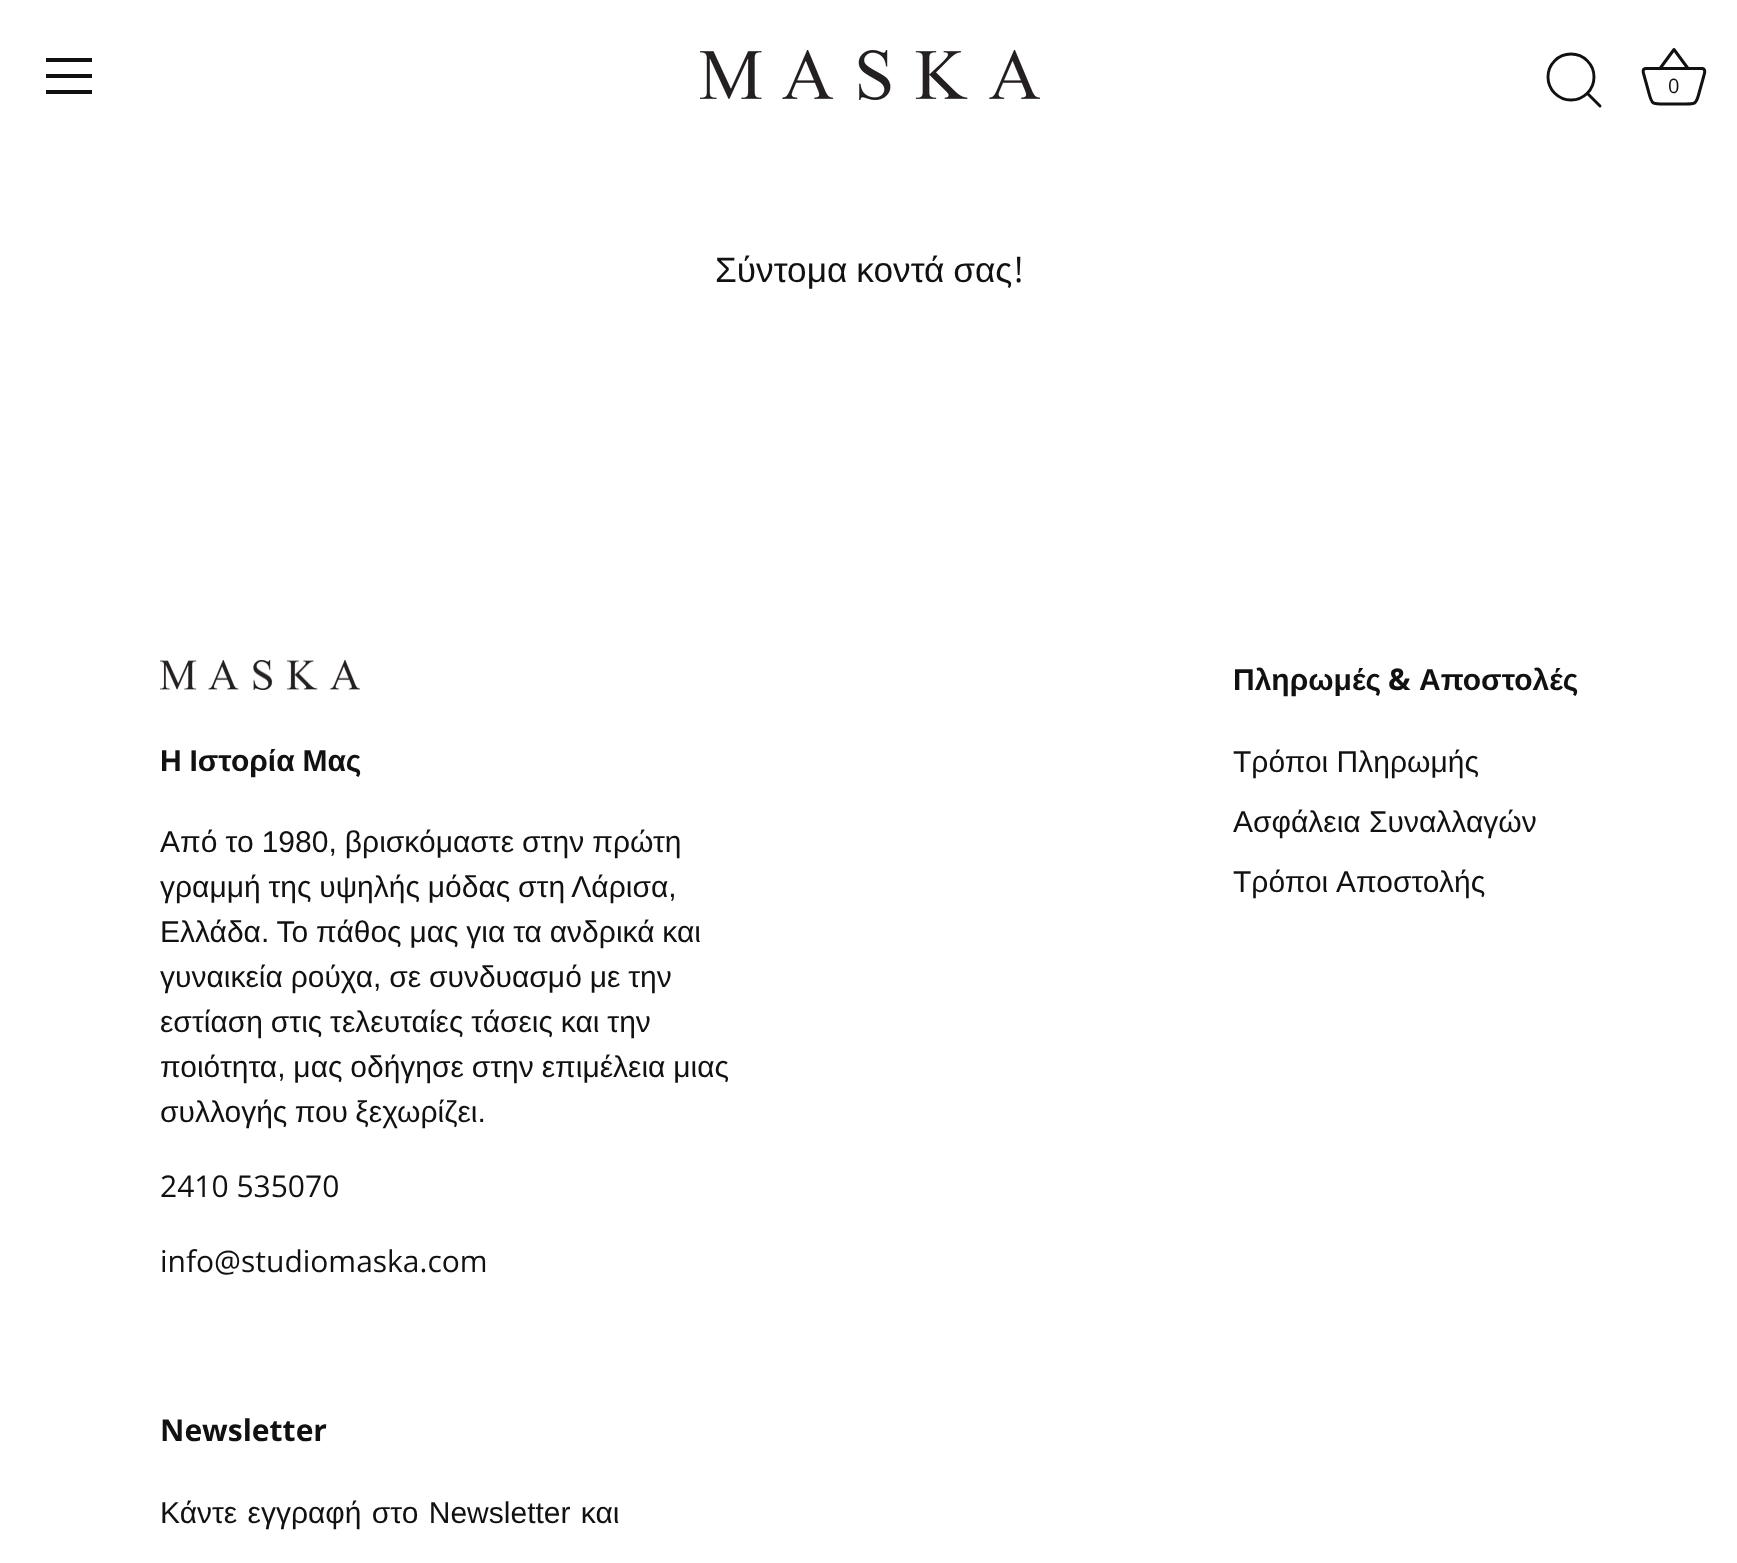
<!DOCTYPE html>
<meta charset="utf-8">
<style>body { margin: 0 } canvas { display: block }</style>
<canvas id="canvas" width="1737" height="1563"></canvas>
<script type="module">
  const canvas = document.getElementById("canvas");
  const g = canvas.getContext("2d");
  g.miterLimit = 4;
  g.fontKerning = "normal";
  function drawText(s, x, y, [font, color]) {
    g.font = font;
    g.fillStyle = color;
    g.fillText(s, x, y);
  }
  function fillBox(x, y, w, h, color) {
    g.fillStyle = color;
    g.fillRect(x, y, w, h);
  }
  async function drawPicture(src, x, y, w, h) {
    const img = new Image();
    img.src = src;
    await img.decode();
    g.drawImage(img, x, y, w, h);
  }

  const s1 = ["20px Open Sans", "#111111"];
  const s2 = ["35.25px Liberation Sans", "#111111"];
  const s3 = ["35.25px Open Sans", "#111111"];
  const s4 = ["bold 30px Liberation Sans", "#111111"];
  const s5 = ["30px Liberation Sans", "#111111"];
  const s6 = ["30px Open Sans", "#111111"];
  const s7 = ["bold 30px Open Sans", "#111111"];

  fillBox(0, 0, 1737, 1563, "#FFFFFF");
  fillBox(46, 58, 46, 4, "#111111");
  fillBox(46, 74, 46, 4, "#111111");
  fillBox(46, 90, 46, 4, "#111111");
  await drawPicture("pic1.png", 700, 50, 340, 50);
  g.beginPath();
  g.arc(1571, 77, 23, 0, Math.PI * 2);
  g.strokeStyle = "#111111";
  g.lineWidth = 2.9;
  g.stroke();
  g.beginPath();
  g.moveTo(1600, 106);
  g.lineTo(1587.5, 93.5);
  g.lineCap = "round";
  g.lineJoin = "round";
  g.stroke();
  g.beginPath();
  g.moveTo(1646, 68.5);
  g.bezierCurveTo(1641, 68.5, 1644, 74.5, 1644.5, 77);
  g.lineTo(1647, 86);
  g.bezierCurveTo(1652.5, 105, 1649, 104, 1668, 104);
  g.lineTo(1685.5, 104);
  g.bezierCurveTo(1695, 104, 1696, 104, 1698.5, 95);
  g.lineTo(1703.5, 77);
  g.bezierCurveTo(1704, 74.5, 1706.5, 69.5, 1702.5, 68.5);
  g.lineTo(1646, 68.5);
  g.lineWidth = 3;
  g.lineCap = "butt";
  g.stroke();
  g.beginPath();
  g.moveTo(1660, 68.5);
  g.lineTo(1674, 49.5);
  g.lineTo(1688, 68.5);
  g.stroke();
  drawText("0", 1668, 93, s1);
  g.wordSpacing = "-1px";
  drawText("Σύντομα κοντά σας", 715, 282, s2);
  g.wordSpacing = "0px";
  drawText("!", 1014, 282, s3);
  await drawPicture("pic2.png", 160, 660, 200, 30);
  g.wordSpacing = "-0.5px";
  drawText("Η Ιστορία Μας", 160, 771, s4);
  g.wordSpacing = "-0.25px";
  drawText("Από το 1980, βρισκόμαστε στην πρώτη", 160, 852, s5);
  g.wordSpacing = "-0.5px";
  drawText("γραμμή της υψηλής μόδας στη Λάρισα,", 160, 897, s5);
  drawText("Ελλάδα. Το πάθος μας για τα ανδρικά και", 160, 942, s5);
  drawText("γυναικεία ρούχα, σε συνδυασμό με την", 160, 987, s5);
  drawText("εστίαση στις τελευταίες τάσεις και την", 160, 1032, s5);
  drawText("ποιότητα, μας οδήγησε στην επιμέλεια μιας", 160, 1077, s5);
  g.wordSpacing = "-1px";
  drawText("συλλογής που ξεχωρίζει.", 160, 1122, s5);
  g.wordSpacing = "0px";
  drawText("2410 535070", 160, 1197, s6);
  drawText("info@studiomaska.com", 160, 1272, s6);
  drawText("Πληρωμές", 1233, 690, s4);
  drawText("&", 1388, 690, s7);
  drawText("Αποστολές", 1419, 690, s4);
  drawText("Τρόποι Πληρωμής", 1233, 772, s5);
  drawText("Ασφάλεια Συναλλαγών", 1233, 832, s5);
  g.wordSpacing = "1px";
  drawText("Τρόποι Αποστολής", 1233, 892, s5);
  g.wordSpacing = "0px";
  drawText("Newsletter", 160, 1441, s7);
  g.wordSpacing = "2px";
  drawText("Κάντε εγγραφή στο Newsletter και", 160, 1523, s5);
</script>
